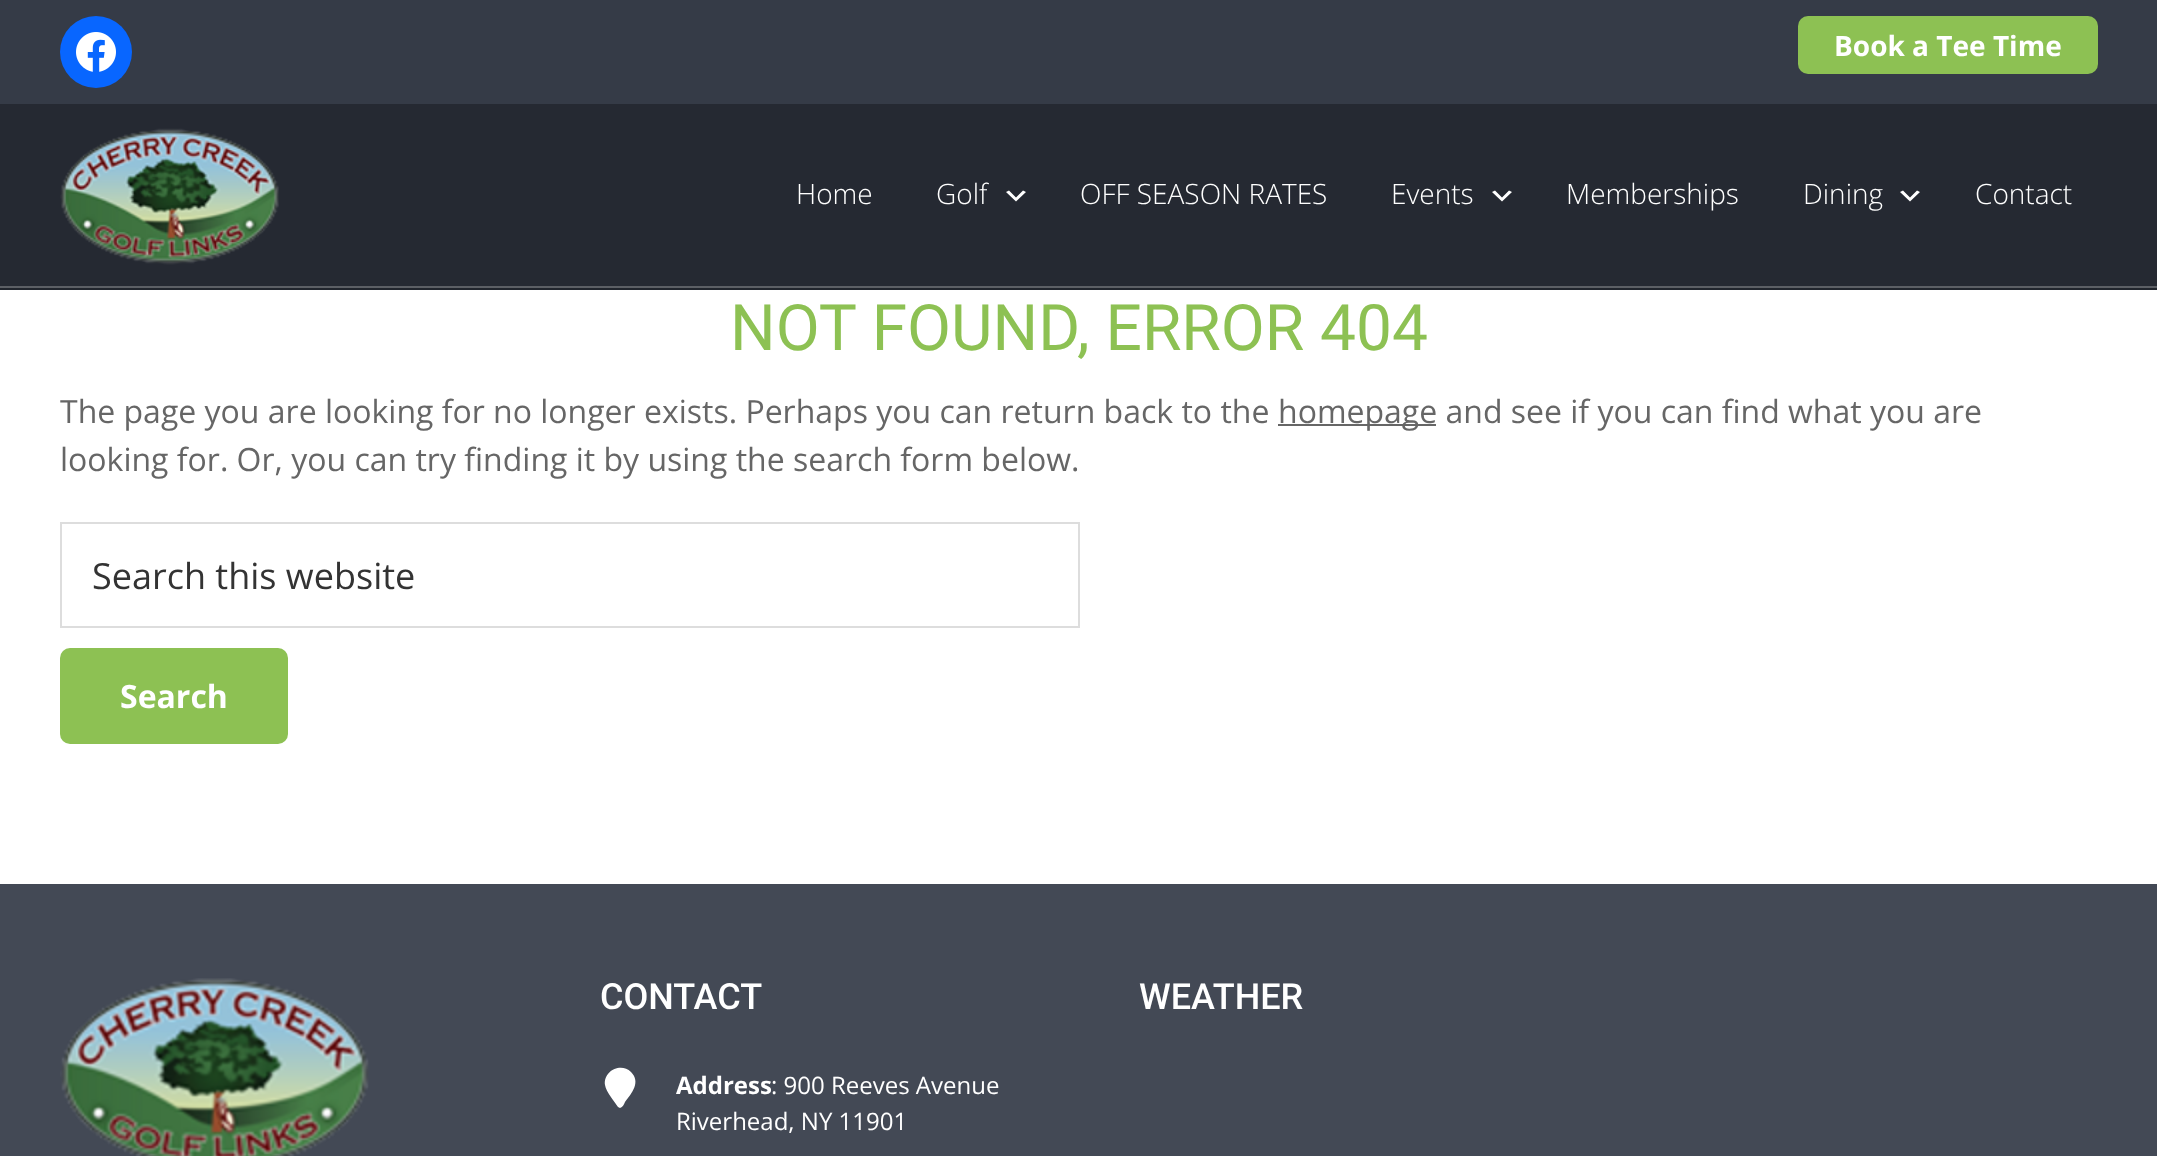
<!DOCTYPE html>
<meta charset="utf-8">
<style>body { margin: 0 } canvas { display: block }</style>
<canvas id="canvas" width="2157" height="1156"></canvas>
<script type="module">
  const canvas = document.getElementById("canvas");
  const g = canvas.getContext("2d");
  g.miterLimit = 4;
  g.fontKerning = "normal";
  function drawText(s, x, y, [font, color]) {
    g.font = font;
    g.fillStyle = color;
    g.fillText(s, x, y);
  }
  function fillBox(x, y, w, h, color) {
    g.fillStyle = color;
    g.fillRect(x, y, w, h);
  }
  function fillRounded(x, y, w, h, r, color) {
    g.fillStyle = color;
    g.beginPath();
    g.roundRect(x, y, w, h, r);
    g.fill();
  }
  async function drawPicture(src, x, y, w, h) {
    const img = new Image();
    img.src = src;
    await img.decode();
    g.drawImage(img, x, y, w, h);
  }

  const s1 = ["bold 28px Open Sans", "#FFFFFF"];
  const s2 = ["300 28px Open Sans", "#FFFFFF"];
  const s3 = ["64px Roboto", "#8DC153"];
  const s4 = ["32px Open Sans", "#666666"];
  const s5 = ["36px Open Sans", "#333333"];
  const s6 = ["bold 32px Open Sans", "#FFFFFF"];
  const s7 = ["500 36px Roboto", "#FFFFFF"];
  const s8 = ["bold 24px Open Sans", "#FFFFFF"];
  const s9 = ["24px Open Sans", "#FFFFFF"];

  fillBox(0, 0, 2157, 1156, "#FFFFFF");
  fillBox(0, 0, 2157, 104, "#353B47");
  g.fillStyle = "#0866FF";
  g.beginPath();
  g.arc(96, 52, 36, 0, Math.PI * 2);
  g.fill();
  await drawPicture("pic1.png", 76, 32, 40, 40);
  fillRounded(1798, 16, 300, 58, 10, "#8DC153");
  drawText("Book a Tee Time", 1834, 56, s1);
  fillBox(0, 104, 2157, 182, "#252932");
  fillBox(0, 288, 2157, 2, "#21252D");
  fillBox(0, 286, 2157, 2, "#5C5F65");
  await drawPicture("pic2.png", 60, 128, 219, 137);
  drawText("Home", 796, 204, s2);
  drawText("Golf", 936, 204, s2);
  g.beginPath();
  g.moveTo(1009, 190.5);
  g.lineTo(1016, 197.5);
  g.lineTo(1023, 190.5);
  g.lineTo(1026, 192);
  g.lineTo(1016, 201.5);
  g.lineTo(1006, 192);
  g.closePath();
  g.fill();
  drawText("OFF SEASON RATES", 1080, 204, s2);
  drawText("Events", 1391, 204, s2);
  g.beginPath();
  g.moveTo(1495, 190.5);
  g.lineTo(1502, 197.5);
  g.lineTo(1509, 190.5);
  g.lineTo(1512, 192);
  g.lineTo(1502, 201.5);
  g.lineTo(1492, 192);
  g.closePath();
  g.fill();
  drawText("Memberships", 1566, 204, s2);
  drawText("Dining", 1803, 204, s2);
  g.beginPath();
  g.moveTo(1903, 190.5);
  g.lineTo(1910, 197.5);
  g.lineTo(1917, 190.5);
  g.lineTo(1920, 192);
  g.lineTo(1910, 201.5);
  g.lineTo(1900, 192);
  g.closePath();
  g.fill();
  drawText("Contact", 1975, 204, s2);
  drawText("NOT FOUND, ERROR 404", 730, 350, s3);
  drawText("The page you are looking for no longer exists. Perhaps you can return back to the", 60, 423, s4);
  fillBox(1278, 424, 158, 2, "#666666");
  drawText("homepage and see if you can find what you are", 1278, 423, s4);
  drawText("looking for. Or, you can try finding it by using the search form below.", 60, 471, s4);
  g.strokeStyle = "#DDDDDD";
  g.lineWidth = 2;
  g.strokeRect(61, 523, 1018, 104);
  drawText("Search this website", 92, 589, s5);
  fillRounded(60, 648, 228, 96, 10, "#8DC153");
  drawText("Search", 120, 708, s6);
  fillBox(0, 884, 2157, 272, "#434955");
  await drawPicture("pic3.png", 60, 978, 309, 178);
  drawText("CONTACT", 600, 1009, s7);
  g.beginPath();
  g.moveTo(618, 1107);
  g.bezierCurveTo(615, 1102, 606, 1092, 605, 1085);
  g.bezierCurveTo(603, 1071, 621, 1062, 631, 1072);
  g.bezierCurveTo(641, 1082, 632, 1093, 625, 1102);
  g.bezierCurveTo(624, 1104, 623, 1107, 620, 1108);
  g.closePath();
  g.fill();
  drawText("Address", 676, 1094, s8);
  drawText(": 900 Reeves Avenue", 771, 1094, s9);
  drawText("Riverhead, NY 11901", 676, 1130, s9);
  drawText("WEATHER", 1139, 1009, s7);
</script>
